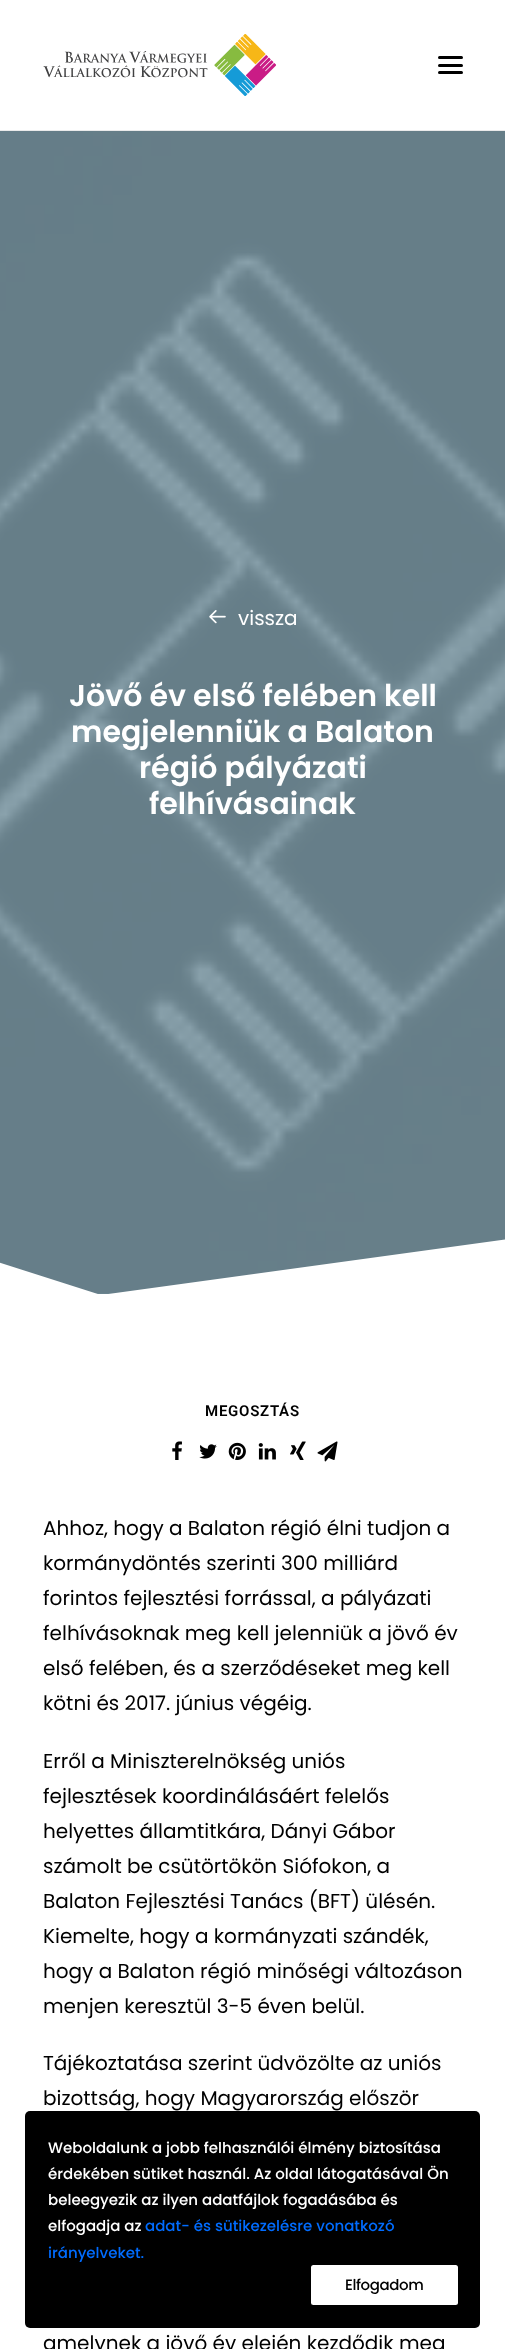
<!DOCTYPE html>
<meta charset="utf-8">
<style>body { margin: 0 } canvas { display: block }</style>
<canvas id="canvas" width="505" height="2349"></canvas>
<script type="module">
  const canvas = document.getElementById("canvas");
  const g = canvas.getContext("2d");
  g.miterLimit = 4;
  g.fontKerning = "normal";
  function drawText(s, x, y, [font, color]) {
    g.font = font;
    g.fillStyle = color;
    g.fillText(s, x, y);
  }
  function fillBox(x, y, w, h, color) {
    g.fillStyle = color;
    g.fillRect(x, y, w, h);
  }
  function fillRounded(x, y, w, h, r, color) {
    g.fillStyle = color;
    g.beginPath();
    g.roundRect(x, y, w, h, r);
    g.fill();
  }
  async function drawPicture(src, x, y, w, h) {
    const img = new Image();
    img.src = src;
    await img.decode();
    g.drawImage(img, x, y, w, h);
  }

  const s1 = ["20px Poppins", "#FFFFFF"];
  const s2 = ["600 30px Poppins", "#FFFFFF"];
  const s3 = ["600 15px Roboto", "#000000"];
  const s4 = ["20px Poppins", "#000000"];
  const s5 = ["500 15px Poppins", "#FFFFFF"];
  const s6 = ["500 15px Poppins", "#006CFF"];
  const s7 = ["500 15px Poppins", "#000000"];

  fillBox(0, 0, 505, 2349, "#6F8D9A");
  fillBox(0, 0, 505, 130, "#FFFFFF");
  fillBox(0, 130, 505, 1, "#EAEAEA");
  await drawPicture("pic1.png", 43, 34, 233, 62);
  fillRounded(438, 64, 25, 3, 1.5, "#000000");
  fillRounded(438, 56, 25, 3, 1.5, "#000000");
  fillRounded(438, 71, 25, 3, 1.5, "#000000");
  await drawPicture("pic2.png", 0, 131, 505, 1163);
  await drawPicture("pic3.png", 209, 610, 17, 14);
  drawText("vissza", 238, 625, s1);
  drawText("Jövő év első felében kell", 69, 706, s2);
  drawText("megjelenniük a Balaton", 71, 742, s2);
  drawText("régió pályázati", 139, 778, s2);
  drawText("felhívásainak", 149, 814, s2);
  g.beginPath();
  g.moveTo(-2, 1262);
  g.lineTo(-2, 1295);
  g.lineTo(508, 1295);
  g.lineTo(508, 1239);
  g.lineTo(101, 1295);
  g.closePath();
  g.fill();
  fillBox(0, 1294, 505, 1055, "#FFFFFF");
  g.letterSpacing = "0.75px";
  drawText("MEGOSZTÁS", 205, 1416, s3);
  await drawPicture("pic4.png", 172, 1441, 10, 19);
  await drawPicture("pic5.png", 199, 1444, 18, 15);
  await drawPicture("pic6.png", 228, 1442, 18, 18);
  await drawPicture("pic7.png", 258, 1443, 18, 17);
  await drawPicture("pic8.png", 290, 1441, 16, 19);
  await drawPicture("pic9.png", 317, 1441, 21, 21);
  g.letterSpacing = "0px";
  drawText("Ahhoz, hogy a Balaton régió élni tudjon a", 43, 1535, s4);
  drawText("kormánydöntés szerinti 300 milliárd", 43, 1570, s4);
  drawText("forintos fejlesztési forrással, a pályázati", 43, 1605, s4);
  drawText("felhívásoknak meg kell jelenniük a jövő év", 43, 1640, s4);
  drawText("első felében, és a szerződéseket meg kell", 43, 1675, s4);
  drawText("kötni és 2017. június végéig.", 43, 1710, s4);
  drawText("Erről a Miniszterelnökség uniós", 43, 1768, s4);
  drawText("fejlesztések koordinálásáért felelős", 43, 1803, s4);
  drawText("helyettes államtitkára, Dányi Gábor", 43, 1838, s4);
  drawText("számolt be csütörtökön Siófokon, a", 43, 1873, s4);
  drawText("Balaton Fejlesztési Tanács (BFT) ülésén.", 43, 1908, s4);
  drawText("Kiemelte, hogy a kormányzati szándék,", 43, 1943, s4);
  drawText("hogy a Balaton régió minőségi változáson", 43, 1978, s4);
  drawText("menjen keresztül 3-5 éven belül.", 43, 2013, s4);
  drawText("Tájékoztatása szerint üdvözölte az uniós", 43, 2070, s4);
  drawText("bizottság, hogy Magyarország először", 43, 2105, s4);
  drawText("amelynek a jövő év elején kezdődik meg", 43, 2350, s4);
  fillRounded(25, 2111, 455, 217, 5, "#000000");
  drawText("Weboldalunk a jobb felhasználói élmény biztosítása", 48, 2153, s5);
  drawText("érdekében sütiket használ. Az oldal látogatásával Ön", 48, 2179, s5);
  drawText("beleegyezik az ilyen adatfájlok fogadásába és", 48, 2205, s5);
  drawText("elfogadja az", 48, 2231, s5);
  drawText("adat- és sütikezelésre vonatkozó", 145, 2231, s6);
  drawText("irányelveket.", 48, 2258, s6);
  fillRounded(311, 2265, 147, 40, 2.5, "#FFFFFF");
  g.letterSpacing = "-0.4px";
  drawText("Elfogadom", 345, 2290, s7);
</script>
